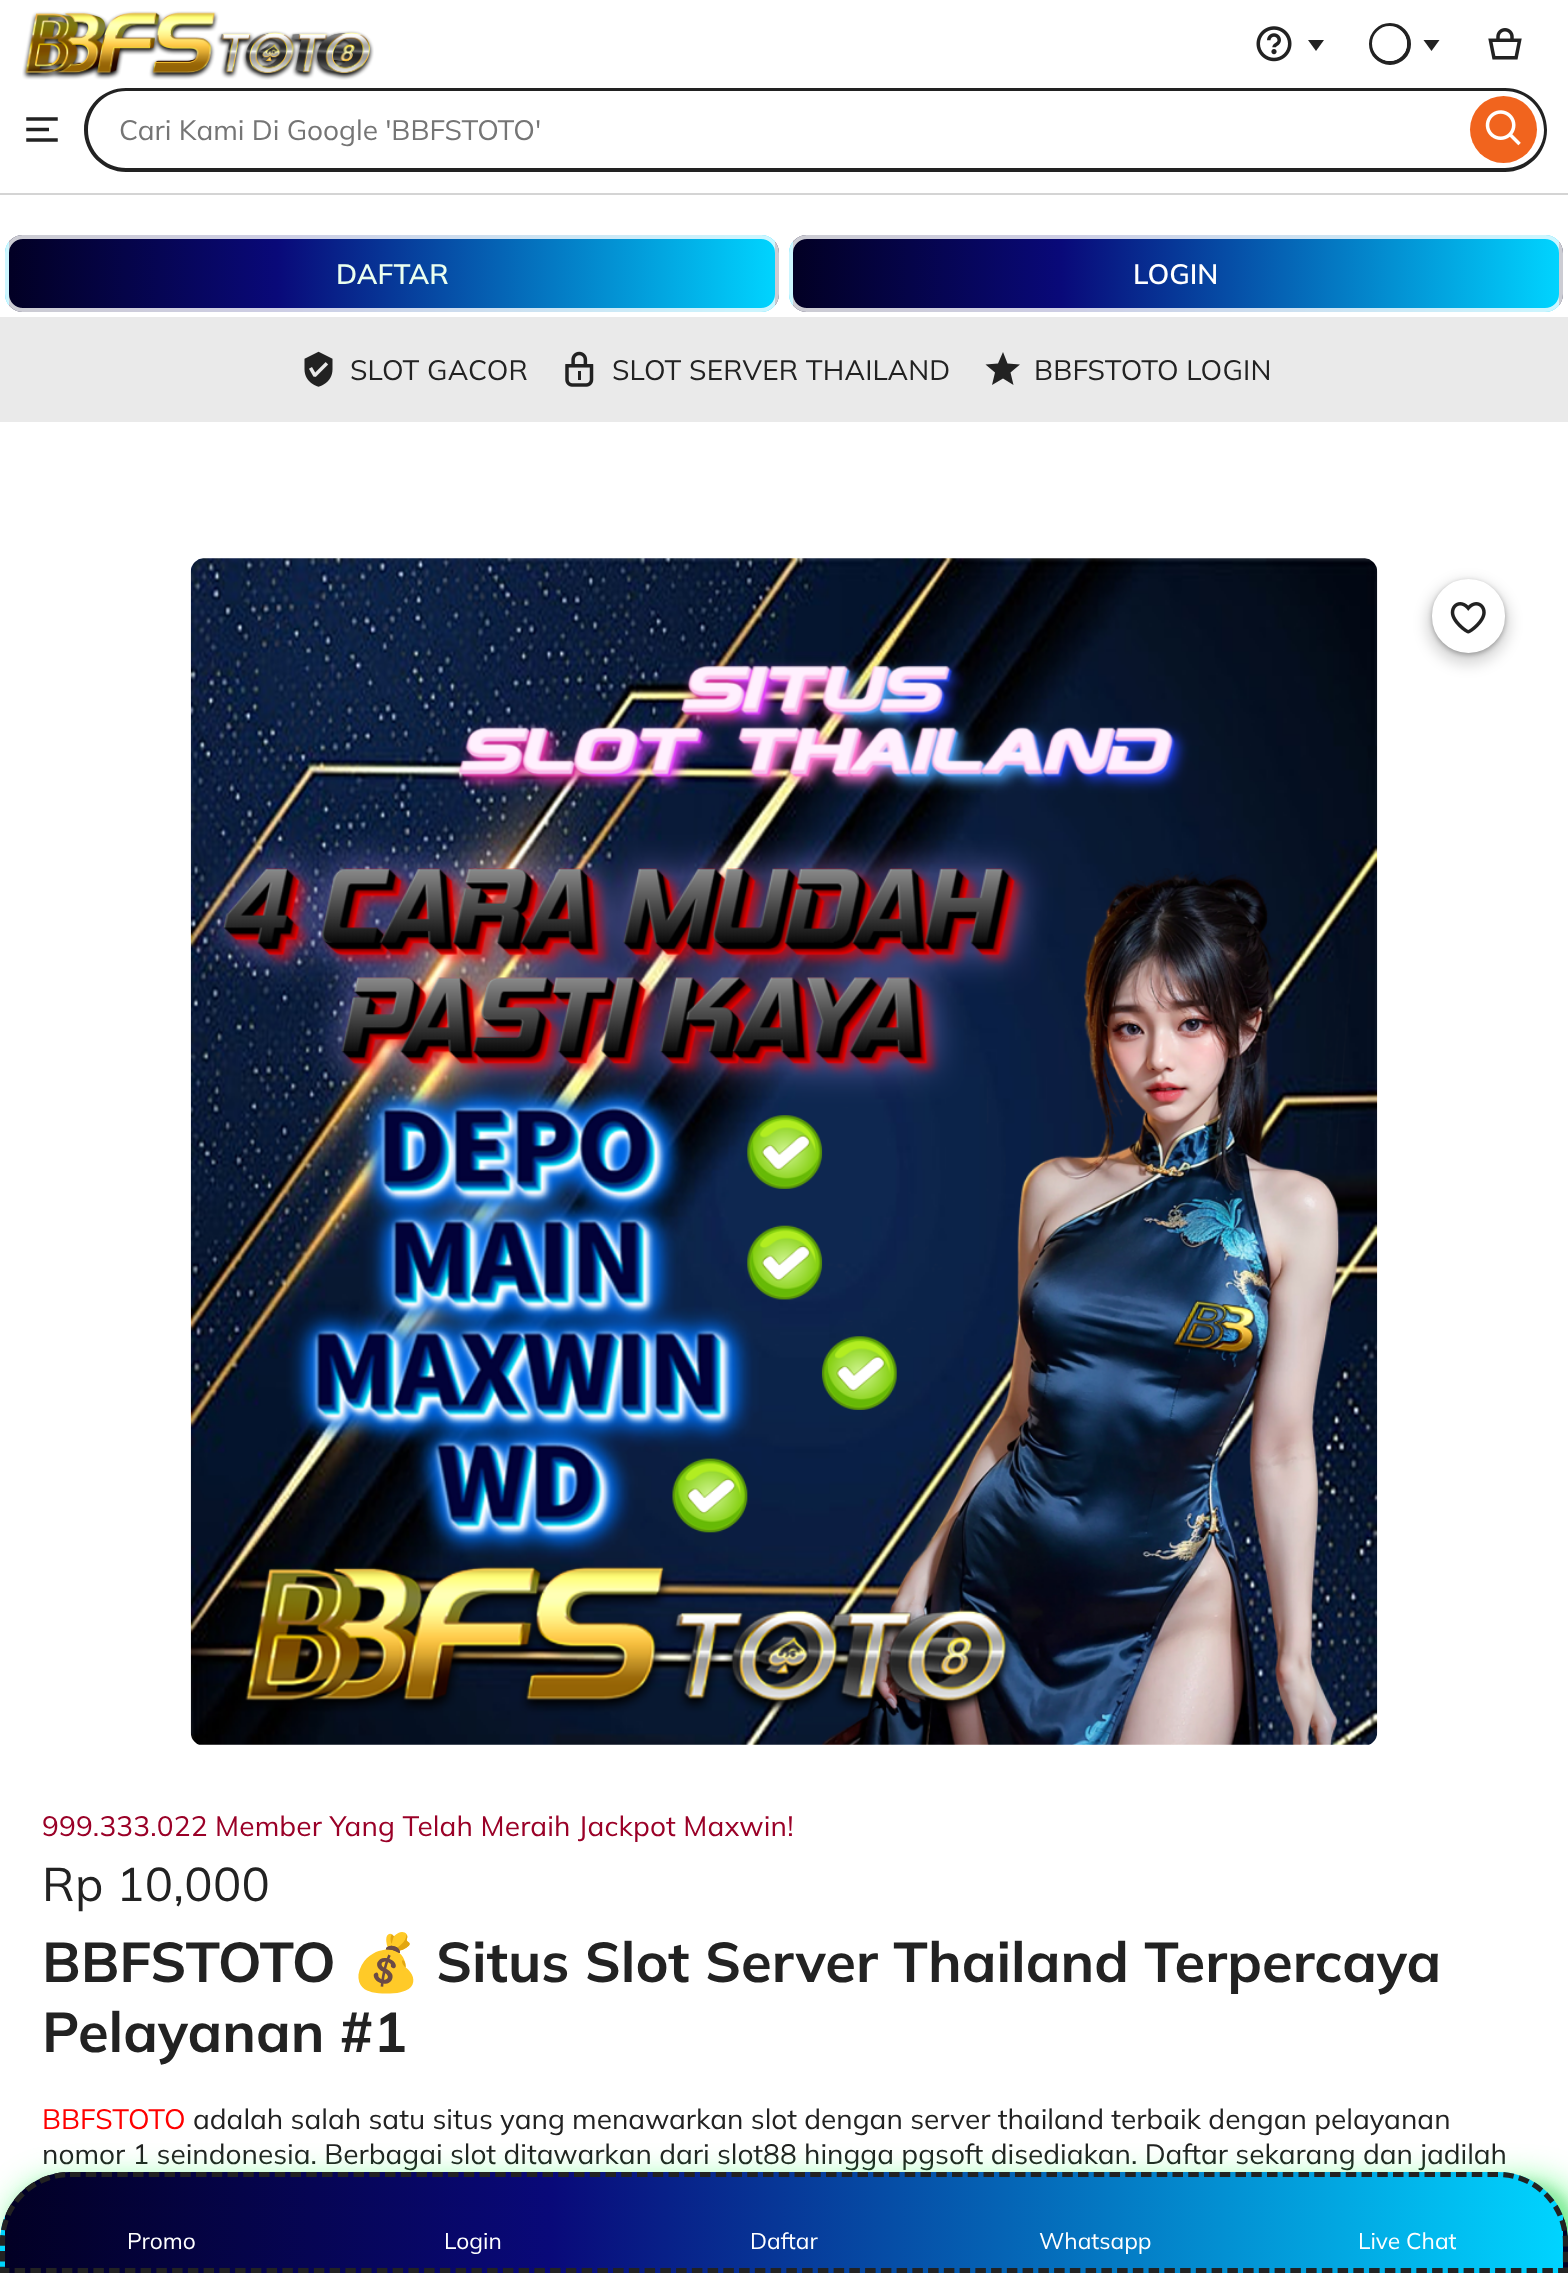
<!DOCTYPE html>
<meta charset="utf-8">
<style>body { margin: 0 } canvas { display: block }</style>
<canvas id="canvas" width="1568" height="2273"></canvas>
<script type="module">
  const canvas = document.getElementById("canvas");
  const g = canvas.getContext("2d");
  g.miterLimit = 4;
  g.fontKerning = "normal";
  function drawText(s, x, y, [font, color]) {
    g.font = font;
    g.fillStyle = color;
    g.fillText(s, x, y);
  }
  function fillBox(x, y, w, h, color) {
    g.fillStyle = color;
    g.fillRect(x, y, w, h);
  }
  async function drawPicture(src, x, y, w, h) {
    const img = new Image();
    img.src = src;
    await img.decode();
    g.drawImage(img, x, y, w, h);
  }
  let gradient;

  const s1 = ["28px Mulish", "#757575"];
  const s2 = ["600 28px Mulish", "#EAFFEF"];
  const s3 = ["600 28px Mulish", "#FFFFFF"];
  const s4 = ["28px Mulish", "#222222"];
  const s5 = ["28px Mulish", "#9A0027"];
  const s6 = ["47.25px Mulish", "#222222"];
  const s7 = ["bold 56px Mulish", "#222222"];
  const s8 = ["bold 56px Noto Color Emoji", "#222222"];
  const s9 = ["28px Mulish", "#FF0000"];
  const s10 = ["22.75px Mulish", "#FFFFFF"];

  fillBox(0, 0, 1568, 2273, "#FFFFFF");
  fillBox(0, 193, 1568, 2, "#D4D4D4");
  await drawPicture("pic1.png", 22, 11, 352, 69);
  await drawPicture("pic2.png", 1256, 26, 36, 36);
  g.fillStyle = "#222222";
  g.beginPath();
  g.moveTo(1324, 40);
  g.lineTo(1316, 51);
  g.lineTo(1308, 40);
  g.closePath();
  g.fill();
  g.beginPath();
  g.arc(1390, 44, 19, 0, Math.PI * 2);
  g.strokeStyle = "#222222";
  g.lineWidth = 4;
  g.stroke();
  g.beginPath();
  g.arc(1389.5, 43.5, 16.5, 0, Math.PI * 2);
  g.strokeStyle = "#FFFFFF";
  g.lineWidth = 2;
  g.stroke();
  g.beginPath();
  g.moveTo(1439.5, 40);
  g.lineTo(1431.5, 51);
  g.lineTo(1423.5, 40);
  g.closePath();
  g.fill();
  await drawPicture("pic3.png", 1488, 28, 34, 32);
  await drawPicture("pic4.png", 26, 117, 32, 25);
  g.beginPath();
  g.moveTo(126, 88);
  g.lineTo(1461, 88);
  g.lineTo(1461, 172);
  g.lineTo(126, 172);
  g.bezierCurveTo(103, 172, 84, 153, 84, 130);
  g.bezierCurveTo(84, 106, 103, 88, 126, 88);
  g.closePath();
  g.moveTo(126, 91);
  g.lineTo(1461, 91);
  g.lineTo(1461, 168);
  g.lineTo(126, 168);
  g.bezierCurveTo(105, 168, 88, 151, 88, 130);
  g.bezierCurveTo(88, 108, 105, 91, 126, 91);
  g.closePath();
  g.fill("evenodd");
  drawText("Cari Kami Di Google 'BBFSTOTO'", 119, 140, s1);
  g.fillStyle = "#222222";
  g.beginPath();
  g.moveTo(1461, 88);
  g.lineTo(1505, 88);
  g.bezierCurveTo(1528, 88, 1547, 106, 1547, 130);
  g.bezierCurveTo(1547, 153, 1528, 172, 1505, 172);
  g.lineTo(1461, 172);
  g.closePath();
  g.moveTo(1461, 91);
  g.lineTo(1505, 91);
  g.bezierCurveTo(1526, 91, 1544, 108, 1544, 130);
  g.bezierCurveTo(1544, 151, 1526, 168, 1505, 168);
  g.lineTo(1461, 168);
  g.closePath();
  g.fill("evenodd");
  g.fillStyle = "#F1641E";
  g.beginPath();
  g.arc(1503.5, 129.5, 33.5, 0, Math.PI * 2);
  g.fill();
  await drawPicture("pic5.png", 1485, 110, 36, 36);
  g.save();
  g.beginPath();
  g.roundRect(5, 235, 774, 77, 18);
  g.clip();
  gradient = g.createLinearGradient(-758, 273, 9, 273);
  gradient.addColorStop(0, "#020024");
  gradient.addColorStop(0.35, "#090979");
  gradient.addColorStop(1, "#00D4FF");
  g.fillStyle = gradient;
  g.fillRect(5, 235, 4, 77);
  gradient = g.createLinearGradient(9, 273, 775, 273);
  gradient.addColorStop(0, "#020024");
  gradient.addColorStop(0.35, "#090979");
  gradient.addColorStop(1, "#00D4FF");
  g.fillStyle = gradient;
  g.fillRect(9, 235, 766, 77);
  gradient = g.createLinearGradient(775, 273, 1542, 273);
  gradient.addColorStop(0, "#020024");
  gradient.addColorStop(0.35, "#090979");
  gradient.addColorStop(1, "#00D4FF");
  g.fillStyle = gradient;
  g.fillRect(775, 235, 4, 77);
  g.restore();
  g.beginPath();
  g.roundRect(7, 237, 770, 73, 16);
  g.strokeStyle = "rgba(255, 255, 255, 0.8)";
  g.lineWidth = 4;
  g.stroke();
  drawText("DAFTAR", 336, 284, s2);
  g.save();
  g.beginPath();
  g.roundRect(789, 235, 774, 77, 18);
  g.clip();
  gradient = g.createLinearGradient(26, 273, 793, 273);
  gradient.addColorStop(0, "#020024");
  gradient.addColorStop(0.35, "#090979");
  gradient.addColorStop(1, "#00D4FF");
  g.fillStyle = gradient;
  g.fillRect(789, 235, 4, 77);
  gradient = g.createLinearGradient(793, 273, 1559, 273);
  gradient.addColorStop(0, "#020024");
  gradient.addColorStop(0.35, "#090979");
  gradient.addColorStop(1, "#00D4FF");
  g.fillStyle = gradient;
  g.fillRect(793, 235, 766, 77);
  gradient = g.createLinearGradient(1559, 273, 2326, 273);
  gradient.addColorStop(0, "#020024");
  gradient.addColorStop(0.35, "#090979");
  gradient.addColorStop(1, "#00D4FF");
  g.fillStyle = gradient;
  g.fillRect(1559, 235, 4, 77);
  g.restore();
  g.beginPath();
  g.roundRect(791, 237, 770, 73, 16);
  g.stroke();
  drawText("LOGIN", 1133, 284, s3);
  fillBox(0, 317, 1568, 105, "#EAEAEA");
  await drawPicture("pic6.png", 304, 351, 29, 36);
  g.letterSpacing = "0.15px";
  drawText("SLOT GACOR", 350, 380, s4);
  await drawPicture("pic7.png", 565, 351, 29, 36);
  drawText("SLOT SERVER THAILAND", 612, 380, s4);
  g.beginPath();
  g.moveTo(1007.5, 363.5);
  g.lineTo(1003, 352);
  g.lineTo(998, 363.5);
  g.lineTo(985.5, 364.5);
  g.lineTo(995, 372.5);
  g.lineTo(992, 385);
  g.lineTo(1003, 378.5);
  g.lineTo(1013.5, 385);
  g.lineTo(1010.5, 372.5);
  g.lineTo(1020, 364.5);
  g.closePath();
  g.fill();
  drawText("BBFSTOTO LOGIN", 1034, 380, s4);
  await drawPicture("pic8.png", 190, 558, 1188, 1187);
  g.fillStyle = "rgba(0, 0, 0, 0.15)";
  g.filter = "blur(7px)";
  g.beginPath();
  g.roundRect(1426, 581, 84, 84, 42);
  g.fill();
  g.filter = "none";
  g.fillStyle = "rgba(0, 0, 0, 0.3)";
  g.filter = "blur(2.5px)";
  g.beginPath();
  g.roundRect(1432, 581, 73, 74, 36.5);
  g.fill();
  g.filter = "none";
  g.fillStyle = "#FFFFFF";
  g.beginPath();
  g.roundRect(1433, 580, 71, 72, 35.5);
  g.fill();
  g.strokeStyle = "#FFFFFF";
  g.lineWidth = 2;
  g.stroke();
  await drawPicture("pic9.png", 1450, 602, 36, 32);
  drawText("999.333.022 Member Yang Telah Meraih Jackpot Maxwin!", 42, 1836, s5);
  g.letterSpacing = "0.25px";
  drawText("Rp 10,000", 42, 1901, s6);
  g.letterSpacing = "0px";
  drawText("BBFSTOTO", 42, 1982, s7);
  drawText("💰", 351, 1982, s8);
  drawText("Situs Slot Server Thailand Terpercaya", 436, 1982, s7);
  drawText("Pelayanan #1", 42, 2052, s7);
  drawText("BBFSTOTO", 42, 2129, s9);
  drawText("adalah salah satu situs yang menawarkan slot dengan server thailand terbaik dengan pelayanan", 193, 2129, s4);
  drawText("nomor 1 seindonesia. Berbagai slot ditawarkan dari slot88 hingga pgsoft disediakan. Daftar sekarang dan jadilah", 42, 2164, s4);
  g.fillStyle = "rgba(0, 0, 0, 0.1)";
  g.filter = "blur(4.5px)";
  g.beginPath();
  g.roundRect(7, 2179, 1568, 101, 70);
  g.fill();
  g.filter = "none";
  g.fillStyle = "rgba(0, 253, 55, 0.64)";
  g.filter = "blur(17.5px)";
  g.beginPath();
  g.roundRect(12, 2184, 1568, 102, 70);
  g.fill();
  g.filter = "none";
  g.save();
  g.beginPath();
  g.roundRect(0, 2172, 1568, 101, [70, 70, 0, 0]);
  g.clip();
  gradient = g.createLinearGradient(-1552, 2223, 5.2, 2223);
  gradient.addColorStop(0, "#020024");
  gradient.addColorStop(0.35, "#090979");
  gradient.addColorStop(1, "#00D4FF");
  g.fillStyle = gradient;
  g.fillRect(0, 2216, 5, 57);
  gradient = g.createLinearGradient(5.2, 2223, 1563, 2223);
  gradient.addColorStop(0, "#020024");
  gradient.addColorStop(0.35, "#090979");
  gradient.addColorStop(1, "#00D4FF");
  g.fillStyle = gradient;
  g.fillRect(5, 2172, 1558, 101);
  gradient = g.createLinearGradient(1563, 2223, 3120, 2223);
  gradient.addColorStop(0, "#020024");
  gradient.addColorStop(0.35, "#090979");
  gradient.addColorStop(1, "#00D4FF");
  g.fillStyle = gradient;
  g.fillRect(1563, 2216, 5, 57);
  g.restore();
  g.beginPath();
  g.moveTo(70, 2174.5);
  g.lineTo(1498, 2174.5);
  g.bezierCurveTo(1535, 2174.5, 1565.5, 2204.5, 1565.5, 2242);
  g.lineTo(1565.5, 2270.5);
  g.lineTo(2.5, 2270.5);
  g.lineTo(2.5, 2242);
  g.bezierCurveTo(2.5, 2204.5, 33, 2174.5, 70, 2174.5);
  g.closePath();
  g.strokeStyle = "#222222";
  g.lineWidth = 5.2;
  g.setLineDash([10.5, 5.25]);
  g.stroke();
  drawText("Promo", 127, 2249, s10);
  drawText("Login", 444, 2249, s10);
  drawText("Daftar", 750, 2249, s10);
  drawText("Whatsapp", 1039, 2249, s10);
  drawText("Live Chat", 1358, 2249, s10);
</script>
